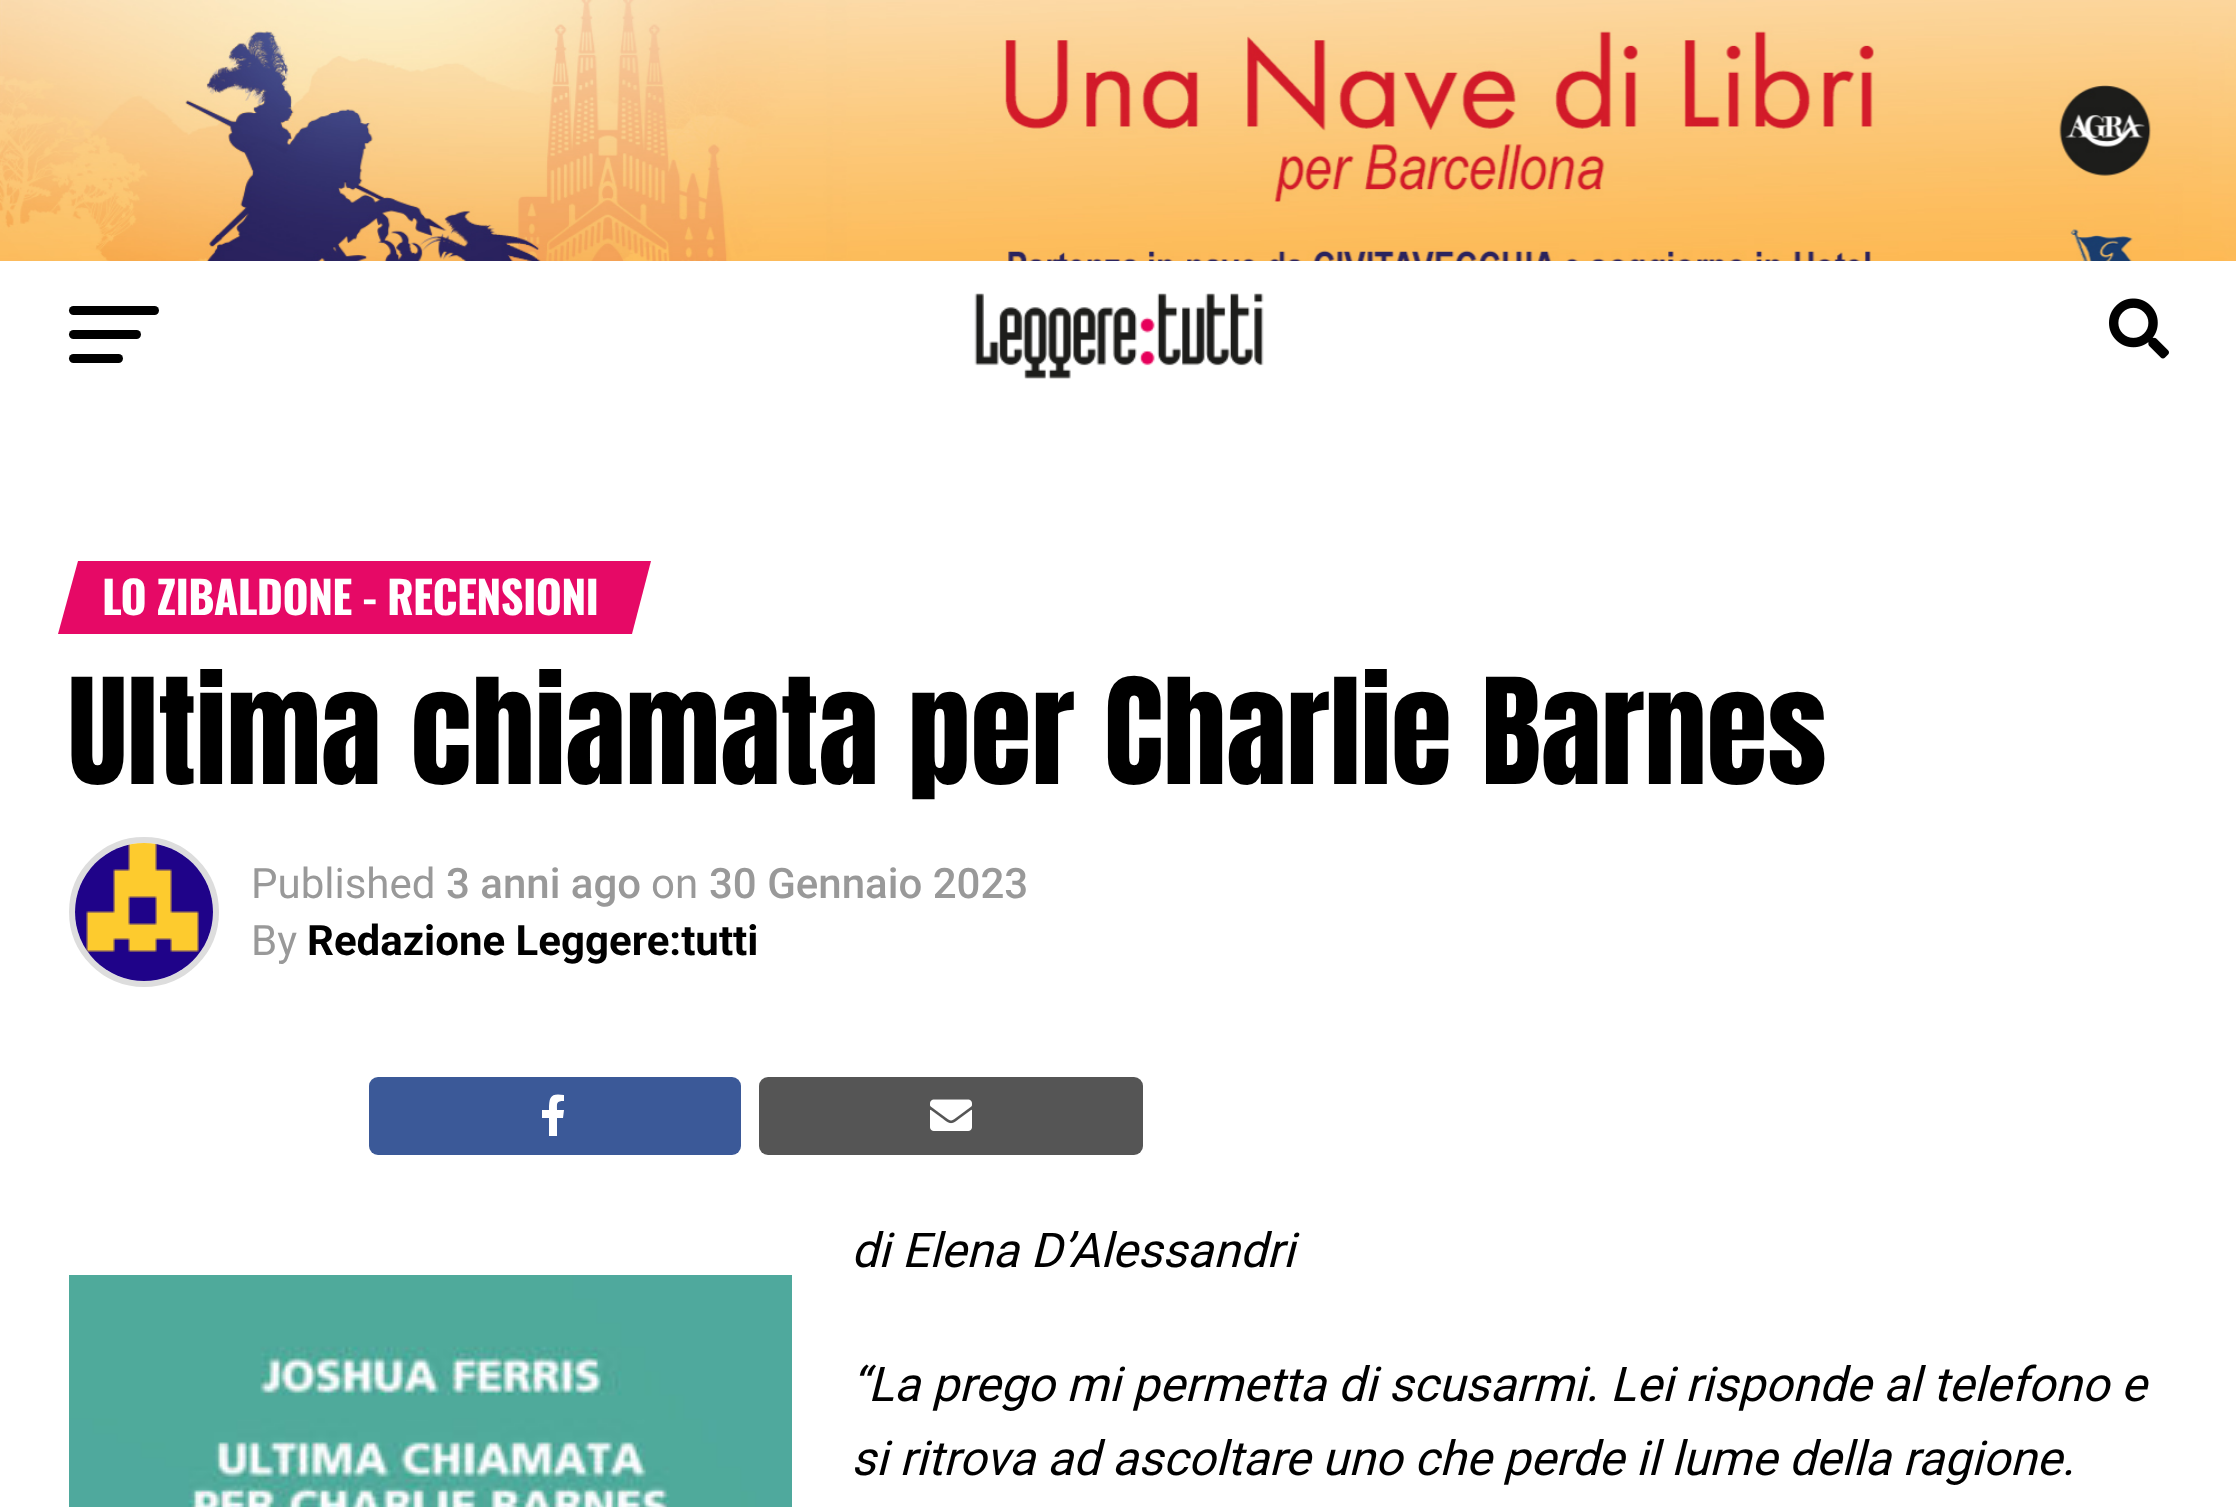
<!DOCTYPE html>
<meta charset="utf-8">
<style>body { margin: 0 } canvas { display: block }</style>
<canvas id="canvas" width="2236" height="1507"></canvas>
<script type="module">
  const canvas = document.getElementById("canvas");
  const g = canvas.getContext("2d");
  g.miterLimit = 4;
  g.fontKerning = "normal";
  function drawText(s, x, y, [font, color]) {
    g.font = font;
    g.fillStyle = color;
    g.fillText(s, x, y);
  }
  function fillBox(x, y, w, h, color) {
    g.fillStyle = color;
    g.fillRect(x, y, w, h);
  }
  function fillRounded(x, y, w, h, r, color) {
    g.fillStyle = color;
    g.beginPath();
    g.roundRect(x, y, w, h, r);
    g.fill();
  }
  async function drawPicture(src, x, y, w, h) {
    const img = new Image();
    img.src = src;
    await img.decode();
    g.drawImage(img, x, y, w, h);
  }

  const s1 = ["bold 44.75px Oswald", "#FFFFFF"];
  const s2 = ["124.75px Anton", "#000000"];
  const s3 = ["42px Roboto", "#999999"];
  const s4 = ["500 42px Roboto", "#999999"];
  const s5 = ["bold 42px Roboto", "#000000"];
  const s6 = ["italic 48px Roboto", "#000000"];

  fillBox(0, 0, 2236, 1507, "#FFFFFF");
  await drawPicture("pic1.png", 0, 0, 2236, 261);
  fillRounded(69, 306, 90, 9, 4.5, "#000000");
  fillRounded(69, 330, 72, 9, 4.5, "#000000");
  fillRounded(69, 354, 54, 9, 4.5, "#000000");
  await drawPicture("pic2.png", 974, 293, 290, 86);
  await drawPicture("pic3.png", 2109, 298, 60, 61);
  g.fillStyle = "#E60966";
  g.beginPath();
  g.moveTo(78, 561);
  g.lineTo(651, 561);
  g.lineTo(632, 634);
  g.lineTo(58, 634);
  g.closePath();
  g.fill();
  g.letterSpacing = "-0.7px";
  drawText("LO ZIBALDONE - RECENSIONI", 102, 615, s1);
  g.letterSpacing = "0px";
  drawText("Ultima chiamata per Charlie Barnes", 68, 784, s2);
  g.beginPath();
  g.arc(144, 912, 72, 0, Math.PI * 2);
  g.strokeStyle = "#DDDDDD";
  g.lineWidth = 6;
  g.stroke();
  await drawPicture("pic4.png", 75, 843, 138, 138);
  drawText("Published", 251, 898, s3);
  drawText("3 anni ago", 446, 898, s4);
  drawText("on", 651, 898, s3);
  drawText("30 Gennaio 2023", 709, 898, s4);
  drawText("By", 251, 955, s3);
  drawText("Redazione Leggere:tutti", 307, 955, s5);
  fillRounded(369, 1077, 372, 78, 9, "#3B5998");
  g.fillStyle = "#FFFFFF";
  g.beginPath();
  g.moveTo(563, 1118);
  g.lineTo(557, 1118);
  g.lineTo(557, 1136);
  g.lineTo(549, 1136);
  g.lineTo(549, 1118);
  g.lineTo(542, 1118);
  g.lineTo(542, 1110);
  g.lineTo(549, 1110);
  g.bezierCurveTo(549, 1096, 551, 1093, 564, 1095);
  g.lineTo(564, 1101);
  g.bezierCurveTo(556, 1101, 557, 1103, 557, 1110);
  g.lineTo(564, 1110);
  g.closePath();
  g.fill();
  fillRounded(759, 1077, 384, 78, 9, "#555555");
  await drawPicture("pic5.png", 930, 1099, 42, 32);
  drawText("di Elena D’Alessandri", 851, 1267, s6);
  await drawPicture("pic6.png", 69, 1275, 723, 232);
  drawText("“La prego mi permetta di scusarmi. Lei risponde al telefono e", 851, 1401, s6);
  drawText("si ritrova ad ascoltare uno che perde il lume della ragione.", 851, 1475, s6);
</script>
